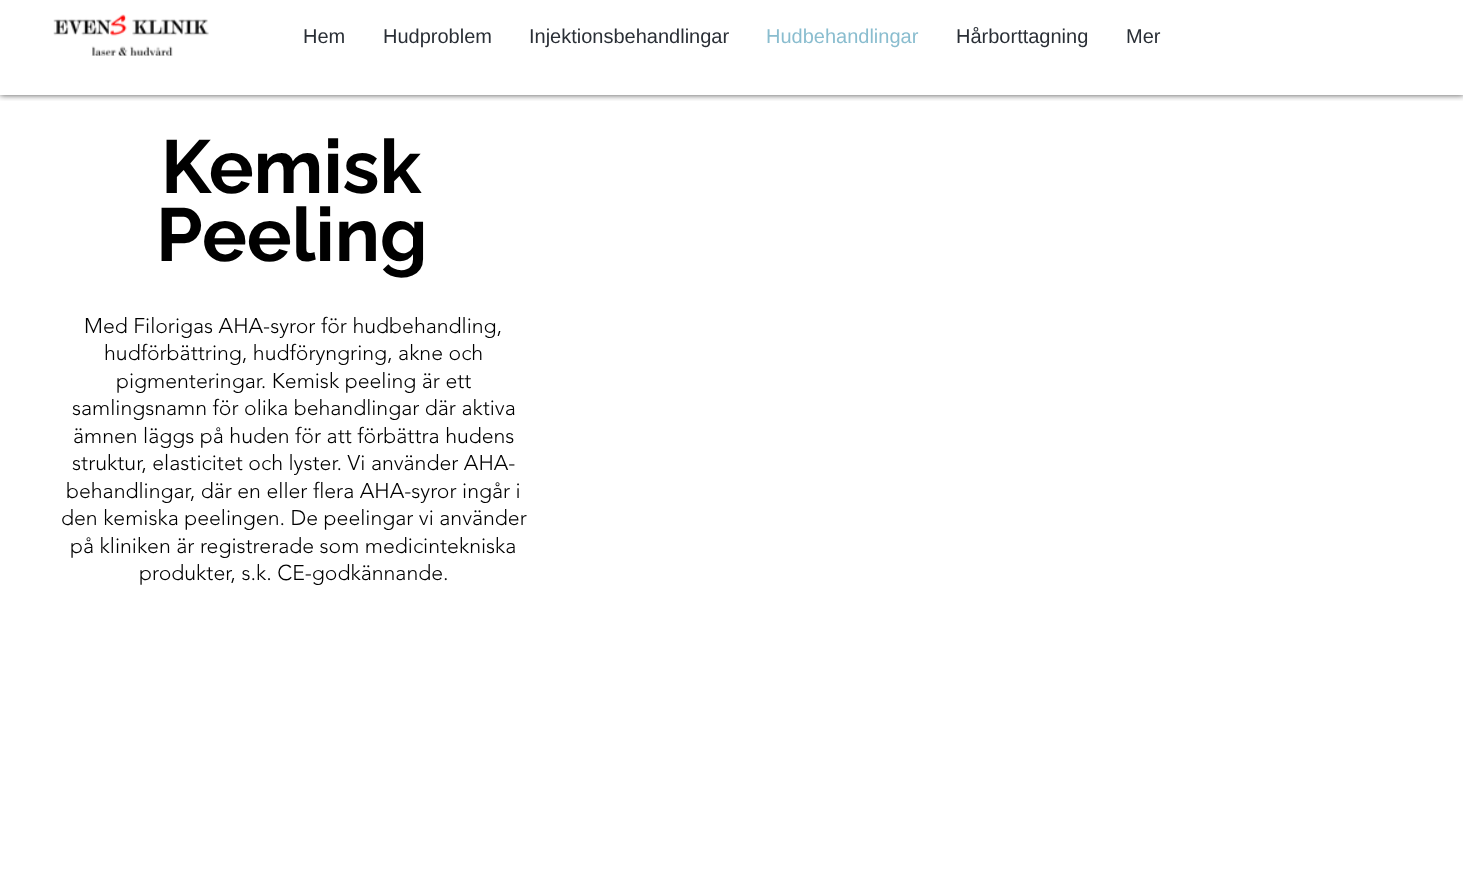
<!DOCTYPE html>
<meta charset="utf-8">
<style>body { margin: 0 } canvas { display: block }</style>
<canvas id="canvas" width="1463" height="882"></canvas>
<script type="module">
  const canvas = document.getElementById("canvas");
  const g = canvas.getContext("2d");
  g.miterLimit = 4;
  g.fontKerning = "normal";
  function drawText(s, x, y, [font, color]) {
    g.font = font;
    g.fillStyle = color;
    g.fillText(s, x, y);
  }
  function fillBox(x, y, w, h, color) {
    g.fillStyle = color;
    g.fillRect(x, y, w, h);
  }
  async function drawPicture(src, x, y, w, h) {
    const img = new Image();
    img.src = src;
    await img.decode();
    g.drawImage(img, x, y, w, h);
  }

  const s1 = ["20px Liberation Sans", "#2A2F36"];
  const s2 = ["20px Liberation Sans", "#8ABDCF"];
  const s3 = ["bold 75px Raleway", "#000000"];
  const s4 = ["300 21.25px 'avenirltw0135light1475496'", "#000000"];

  fillBox(0, 0, 1463, 882, "#FFFFFF");
  g.save();
  g.beginPath();
  g.rect(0, 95, 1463, 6);
  g.clip();
  g.fillStyle = "rgba(0, 0, 0, 0.7)";
  g.filter = "blur(3px)";
  g.beginPath();
  g.rect(0, 0, 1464, 95);
  g.fill();
  g.filter = "none";
  g.restore();
  await drawPicture("pic1.png", 53, 14, 156, 42);
  drawText("Hem", 303, 43, s1);
  drawText("Hudproblem", 383, 43, s1);
  drawText("Injektionsbehandlingar", 529, 43, s1);
  drawText("Hudbehandlingar", 766, 43, s2);
  drawText("Hårborttagning", 956, 43, s1);
  drawText("Mer", 1126, 43, s1);
  drawText("Kemisk", 161, 193, s3);
  drawText("Peeling", 156, 261, s3);
  drawText("Med Filorigas AHA-syror för hudbehandling,", 84, 333, s4);
  drawText("hudförbättring, hudföryngring, akne och", 104, 360, s4);
  drawText("pigmenteringar. Kemisk peeling är ett", 116, 388, s4);
  drawText("samlingsnamn för olika behandlingar där aktiva", 72, 415, s4);
  drawText("ämnen läggs på huden för att förbättra hudens", 73, 443, s4);
  drawText("struktur, elasticitet och lyster. Vi använder AHA-", 72, 470, s4);
  drawText("behandlingar, där en eller flera AHA-syror ingår i", 66, 498, s4);
  drawText("den kemiska peelingen. De peelingar vi använder", 61, 525, s4);
  drawText("på kliniken är registrerade som medicintekniska", 70, 553, s4);
  drawText("produkter, s.k. CE-godkännande.", 139, 580, s4);
</script>
